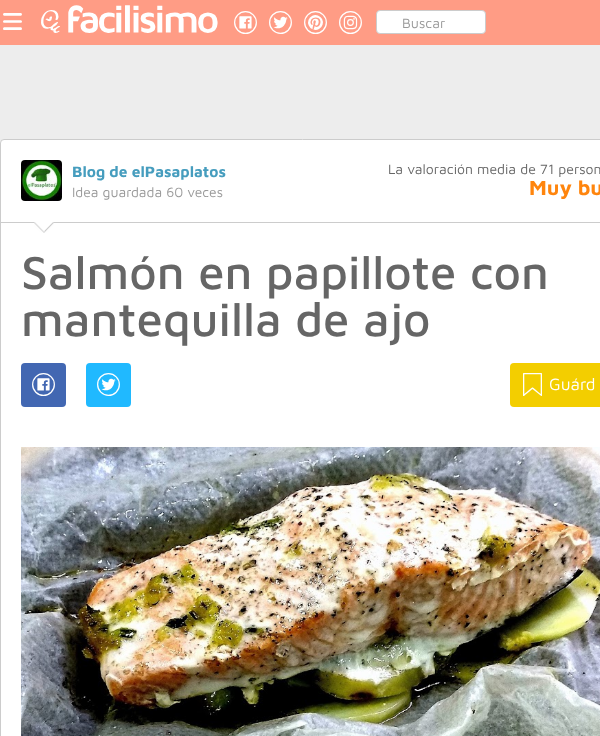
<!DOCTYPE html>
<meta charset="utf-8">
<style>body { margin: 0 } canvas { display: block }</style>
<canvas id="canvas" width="600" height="736"></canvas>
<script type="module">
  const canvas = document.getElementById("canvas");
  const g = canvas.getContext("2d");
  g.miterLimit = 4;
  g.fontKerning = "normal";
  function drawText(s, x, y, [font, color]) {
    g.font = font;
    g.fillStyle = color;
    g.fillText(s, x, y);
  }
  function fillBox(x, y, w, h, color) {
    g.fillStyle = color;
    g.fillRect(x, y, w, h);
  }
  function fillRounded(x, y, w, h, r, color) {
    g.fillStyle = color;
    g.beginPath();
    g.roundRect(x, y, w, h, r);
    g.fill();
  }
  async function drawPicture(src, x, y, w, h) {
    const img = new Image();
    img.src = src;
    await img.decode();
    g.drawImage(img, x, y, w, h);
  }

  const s1 = ["14px Maven Pro", "#999999"];
  const s2 = ["bold 15.5px Maven Pro", "#469DBE"];
  const s3 = ["13.9px Maven Pro", "#999999"];
  const s4 = ["14px Maven Pro", "#666666"];
  const s5 = ["bold 21px Maven Pro", "#FF850D"];
  const s6 = ["500 47.6px Maven Pro", "#666666"];
  const s7 = ["17px Maven Pro", "#FFFFFF"];

  fillBox(0, 0, 600, 736, "#EDEDED");
  fillBox(0, 0, 600, 45, "#FF9C85");
  await drawPicture("pic1.png", 3, 13, 19, 17);
  await drawPicture("pic2.png", 41, 10, 19, 23);
  await drawPicture("pic3.png", 68, 5, 150, 28);
  await drawPicture("pic4.png", 234, 11, 23, 23);
  await drawPicture("pic5.png", 269, 11, 23, 23);
  await drawPicture("pic6.png", 304, 11, 23, 23);
  await drawPicture("pic7.png", 339, 11, 23, 23);
  g.fillStyle = "#FFFFFF";
  g.beginPath();
  g.roundRect(376.5, 10.5, 109, 23, 3.5);
  g.fill();
  g.strokeStyle = "#CCCCCC";
  g.stroke();
  drawText("Buscar", 402, 28, s1);
  g.fillStyle = "#FFFFFF";
  g.beginPath();
  g.roundRect(0.5, 139.5, 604, 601, 3.5);
  g.fill();
  g.stroke();
  fillBox(1, 222, 599, 1, "#CCCCCC");
  await drawPicture("pic8.png", 21, 160, 41, 41);
  drawText("Blog de elPasaplatos", 72, 177, s2);
  drawText("Idea guardada 60 veces", 72, 197, s3);
  drawText("La valoración media de 71 person", 388, 174, s4);
  drawText("Muy bu", 529, 195, s5);
  await drawPicture("pic9.png", 34, 222, 20, 11);
  drawText("Salmón en papillote con", 21, 289, s6);
  drawText("mantequilla de ajo", 21, 336, s6);
  fillRounded(21, 363, 45, 44, 4, "#4267B2");
  await drawPicture("pic10.png", 32, 373, 23, 23);
  fillRounded(86, 363, 45, 44, 4, "#20B9FF");
  await drawPicture("pic11.png", 97, 373, 23, 23);
  fillRounded(510, 363, 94, 44, 4, "#F3CE00");
  await drawPicture("pic12.png", 523, 373, 19, 23);
  drawText("Guárd", 549, 390, s7);
  await drawPicture("pic13.png", 21, 447, 579, 289);
</script>
